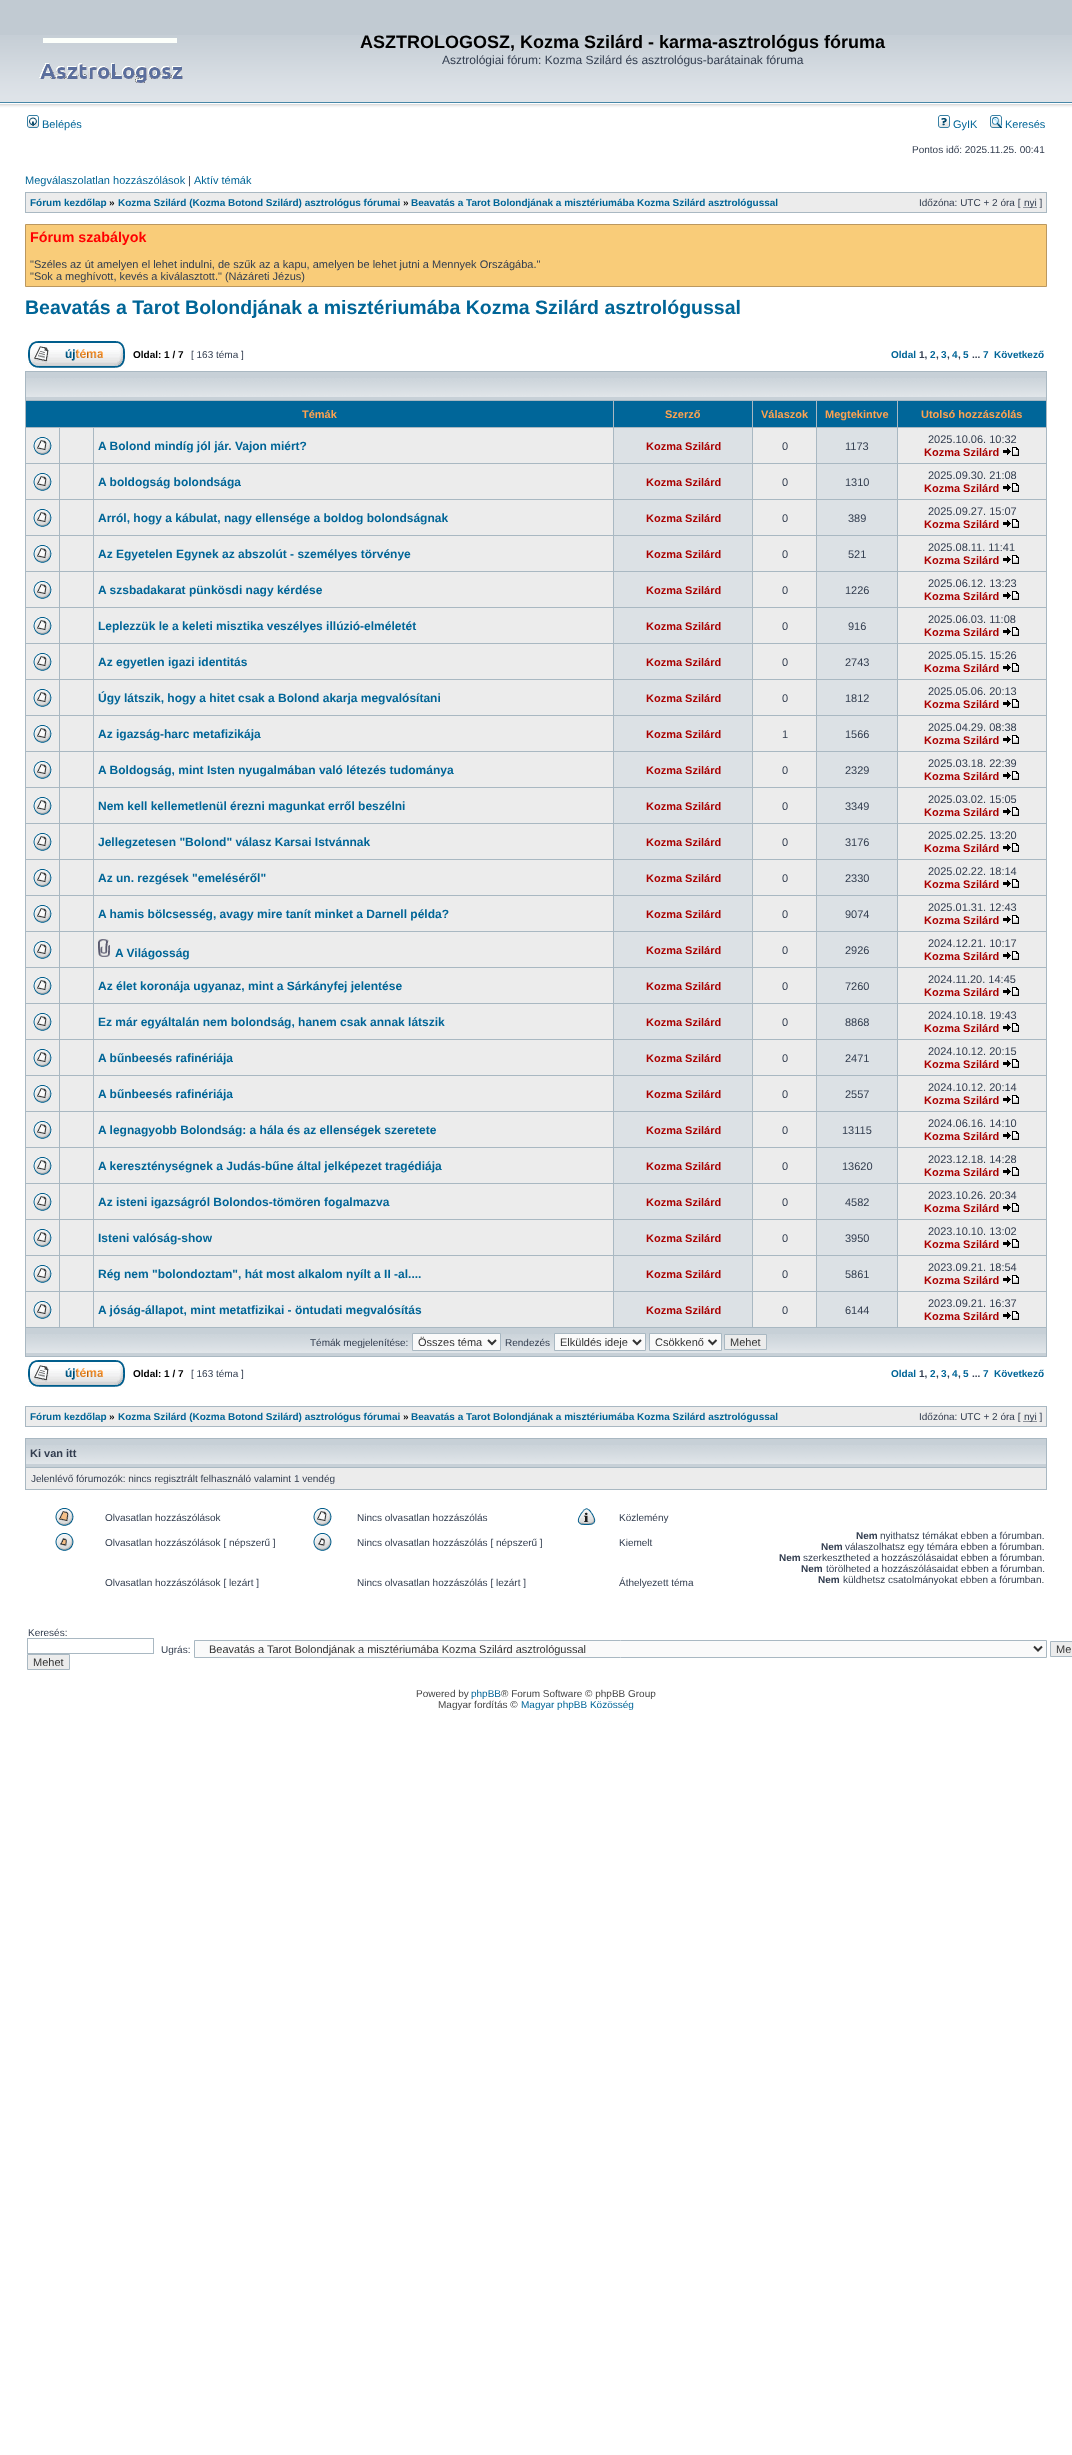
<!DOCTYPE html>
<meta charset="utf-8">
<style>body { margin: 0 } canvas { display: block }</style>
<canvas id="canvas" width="1072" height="2455"></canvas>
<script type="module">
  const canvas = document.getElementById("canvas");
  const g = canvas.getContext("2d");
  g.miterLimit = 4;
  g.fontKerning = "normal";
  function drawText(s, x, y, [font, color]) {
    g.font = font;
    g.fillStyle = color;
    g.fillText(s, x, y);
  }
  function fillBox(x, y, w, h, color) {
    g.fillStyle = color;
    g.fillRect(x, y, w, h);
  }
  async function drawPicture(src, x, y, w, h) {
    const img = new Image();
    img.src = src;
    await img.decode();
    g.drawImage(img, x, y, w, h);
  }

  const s1 = ["bold 18px Liberation Sans", "#000000"];
  const s2 = ["12px Liberation Sans", "#323D4F"];
  const s3 = ["11px Liberation Sans", "#006597"];
  const s4 = ["10px Liberation Sans", "#323D4F"];
  const s5 = ["11px Liberation Sans", "#323D4F"];
  const s6 = ["bold 10px Liberation Sans", "#006597"];
  const s7 = ["bold 10px Liberation Sans", "#000000"];
  const s8 = ["bold 14.25px Liberation Sans", "#FF0000"];
  const s9 = ["bold 19.5px Liberation Sans", "#006597"];
  const s10 = ["bold 10px Liberation Sans", "#323D4F"];
  const s11 = ["bold 11px Liberation Sans", "#FFA34F"];
  const s12 = ["bold 12px Liberation Sans", "#006597"];
  const s13 = ["bold 11px Liberation Sans", "#AA0000"];
  const s14 = ["11px Liberation Sans", "#333333"];
  const s15 = ["bold 11px Liberation Sans", "#323D4F"];
  const s16 = ["10px Liberation Sans", "#444444"];
  const s17 = ["10px Liberation Sans", "#006597"];

  fillBox(0, 0, 1072, 2455, "#FFFFFF");
  fillBox(0, 0, 1072, 35, "#C1CAD2");
  await drawPicture("pic1.png", 0, 35, 1072, 78);
  await drawPicture("pic2.png", 39, 38, 144, 45);
  drawText("ASZTROLOGOSZ, Kozma Szilárd - karma-asztrológus fóruma", 360, 48, s1);
  drawText("Asztrológiai fórum: Kozma Szilárd és asztrológus-barátainak fóruma", 442, 64, s2);
  await drawPicture("pic3.png", 27, 115, 12, 13);
  drawText("Belépés", 42, 128, s3);
  await drawPicture("pic4.png", 938, 115, 12, 13);
  drawText("GyIK", 953, 128, s3);
  await drawPicture("pic5.png", 990, 115, 12, 13);
  drawText("Keresés", 1005, 128, s3);
  drawText("Pontos idő: 2025.11.25. 00:41", 912, 153, s4);
  drawText("Megválaszolatlan hozzászólások", 25, 184, s3);
  drawText("|", 188, 184, s5);
  drawText("Aktív témák", 194, 184, s3);
  fillBox(25, 192, 1022, 21, "#A9B8C2");
  fillBox(26, 193, 1020, 19, "#ECECEC");
  drawText("Fórum kezdőlap", 30, 206, s6);
  drawText("»", 109, 206, s7);
  drawText("Kozma Szilárd (Kozma Botond Szilárd) asztrológus fórumai", 118, 206, s6);
  drawText("»", 403, 206, s7);
  drawText("Beavatás a Tarot Bolondjának a misztériumába Kozma Szilárd asztrológussal", 411, 206, s6);
  drawText("Időzóna: UTC + 2 óra [", 919, 206, s4);
  g.beginPath();
  g.moveTo(1023.5, 207.5);
  g.lineTo(1036.5, 207.5);
  g.strokeStyle = "#323D4F";
  g.setLineDash([1, 1]);
  g.stroke();
  drawText("nyi ]", 1024, 206, s4);
  g.fillStyle = "#F9CC79";
  g.beginPath();
  g.rect(25.5, 224.5, 1021, 62);
  g.fill();
  g.strokeStyle = "#BB9860";
  g.setLineDash([]);
  g.stroke();
  drawText("Fórum szabályok", 30, 242, s8);
  drawText("\"Széles az út amelyen el lehet indulni, de szűk az a kapu, amelyen be lehet jutni a Mennyek Országába.\"", 30, 268, s5);
  drawText("\"Sok a meghívott, kevés a kiválasztott.\" (Názáreti Jézus)", 30, 280, s5);
  drawText("Beavatás a Tarot Bolondjának a misztériumába Kozma Szilárd asztrológussal", 25, 314, s9);
  await drawPicture("pic6.png", 28, 341, 97, 27);
  drawText("Oldal: 1 / 7", 133, 358, s7);
  drawText("[ 163 téma ]", 191, 358, s4);
  drawText("Oldal", 891, 358, s6);
  drawText("1,", 919, 358, s10);
  drawText("2", 930, 358, s6);
  drawText(",", 936, 358, s10);
  drawText("3", 941, 358, s6);
  drawText(",", 947, 358, s10);
  drawText("4", 952, 358, s6);
  drawText(",", 958, 358, s10);
  drawText("5", 963, 358, s6);
  drawText("...", 972, 358, s10);
  drawText("7", 983, 358, s6);
  drawText("Következő", 994, 358, s6);
  fillBox(25, 371, 1022, 986, "#A9B8C2");
  fillBox(26, 372, 1020, 28, "#C7D0D7");
  await drawPicture("pic7.png", 26, 378, 1020, 19);
  fillBox(26, 401, 587, 26, "#006699");
  drawText("Témák", 302, 418, s11);
  fillBox(614, 401, 138, 26, "#006699");
  drawText("Szerző", 665, 418, s11);
  fillBox(753, 401, 63, 26, "#006699");
  drawText("Válaszok", 761, 418, s11);
  fillBox(817, 401, 80, 26, "#006699");
  drawText("Megtekintve", 825, 418, s11);
  fillBox(898, 401, 148, 26, "#006699");
  drawText("Utolsó hozzászólás", 921, 418, s11);
  fillBox(26, 428, 33, 35, "#ECECEC");
  await drawPicture("pic8.png", 33, 437, 19, 18);
  fillBox(60, 428, 33, 35, "#ECECEC");
  fillBox(94, 428, 519, 35, "#ECECEC");
  drawText("A Bolond mindíg jól jár. Vajon miért?", 98, 450, s12);
  fillBox(614, 428, 138, 35, "#DCE1E5");
  drawText("Kozma Szilárd", 646, 450, s13);
  fillBox(753, 428, 63, 35, "#ECECEC");
  drawText("0", 782, 450, s5);
  fillBox(817, 428, 80, 35, "#DCE1E5");
  drawText("1173", 845, 450, s5);
  fillBox(898, 428, 148, 35, "#ECECEC");
  drawText("2025.10.06. 10:32", 928, 443, s5);
  drawText("Kozma Szilárd", 924, 456, s13);
  await drawPicture("pic9.png", 1003, 447, 16, 9);
  fillBox(26, 464, 33, 35, "#ECECEC");
  await drawPicture("pic8.png", 33, 473, 19, 18);
  fillBox(60, 464, 33, 35, "#ECECEC");
  fillBox(94, 464, 519, 35, "#ECECEC");
  drawText("A boldogság bolondsága", 98, 486, s12);
  fillBox(614, 464, 138, 35, "#DCE1E5");
  drawText("Kozma Szilárd", 646, 486, s13);
  fillBox(753, 464, 63, 35, "#ECECEC");
  drawText("0", 782, 486, s5);
  fillBox(817, 464, 80, 35, "#DCE1E5");
  drawText("1310", 845, 486, s5);
  fillBox(898, 464, 148, 35, "#ECECEC");
  drawText("2025.09.30. 21:08", 928, 479, s5);
  drawText("Kozma Szilárd", 924, 492, s13);
  await drawPicture("pic9.png", 1003, 483, 16, 9);
  fillBox(26, 500, 33, 35, "#ECECEC");
  await drawPicture("pic8.png", 33, 509, 19, 18);
  fillBox(60, 500, 33, 35, "#ECECEC");
  fillBox(94, 500, 519, 35, "#ECECEC");
  drawText("Arról, hogy a kábulat, nagy ellensége a boldog bolondságnak", 98, 522, s12);
  fillBox(614, 500, 138, 35, "#DCE1E5");
  drawText("Kozma Szilárd", 646, 522, s13);
  fillBox(753, 500, 63, 35, "#ECECEC");
  drawText("0", 782, 522, s5);
  fillBox(817, 500, 80, 35, "#DCE1E5");
  drawText("389", 848, 522, s5);
  fillBox(898, 500, 148, 35, "#ECECEC");
  drawText("2025.09.27. 15:07", 928, 515, s5);
  drawText("Kozma Szilárd", 924, 528, s13);
  await drawPicture("pic9.png", 1003, 519, 16, 9);
  fillBox(26, 536, 33, 35, "#ECECEC");
  await drawPicture("pic8.png", 33, 545, 19, 18);
  fillBox(60, 536, 33, 35, "#ECECEC");
  fillBox(94, 536, 519, 35, "#ECECEC");
  drawText("Az Egyetelen Egynek az abszolút - személyes törvénye", 98, 558, s12);
  fillBox(614, 536, 138, 35, "#DCE1E5");
  drawText("Kozma Szilárd", 646, 558, s13);
  fillBox(753, 536, 63, 35, "#ECECEC");
  drawText("0", 782, 558, s5);
  fillBox(817, 536, 80, 35, "#DCE1E5");
  drawText("521", 848, 558, s5);
  fillBox(898, 536, 148, 35, "#ECECEC");
  drawText("2025.08.11. 11:41", 928, 551, s5);
  drawText("Kozma Szilárd", 924, 564, s13);
  await drawPicture("pic9.png", 1003, 555, 16, 9);
  fillBox(26, 572, 33, 35, "#ECECEC");
  await drawPicture("pic8.png", 33, 581, 19, 18);
  fillBox(60, 572, 33, 35, "#ECECEC");
  fillBox(94, 572, 519, 35, "#ECECEC");
  drawText("A szsbadakarat pünkösdi nagy kérdése", 98, 594, s12);
  fillBox(614, 572, 138, 35, "#DCE1E5");
  drawText("Kozma Szilárd", 646, 594, s13);
  fillBox(753, 572, 63, 35, "#ECECEC");
  drawText("0", 782, 594, s5);
  fillBox(817, 572, 80, 35, "#DCE1E5");
  drawText("1226", 845, 594, s5);
  fillBox(898, 572, 148, 35, "#ECECEC");
  drawText("2025.06.12. 13:23", 928, 587, s5);
  drawText("Kozma Szilárd", 924, 600, s13);
  await drawPicture("pic9.png", 1003, 591, 16, 9);
  fillBox(26, 608, 33, 35, "#ECECEC");
  await drawPicture("pic8.png", 33, 617, 19, 18);
  fillBox(60, 608, 33, 35, "#ECECEC");
  fillBox(94, 608, 519, 35, "#ECECEC");
  drawText("Leplezzük le a keleti misztika veszélyes illúzió-elméletét", 98, 630, s12);
  fillBox(614, 608, 138, 35, "#DCE1E5");
  drawText("Kozma Szilárd", 646, 630, s13);
  fillBox(753, 608, 63, 35, "#ECECEC");
  drawText("0", 782, 630, s5);
  fillBox(817, 608, 80, 35, "#DCE1E5");
  drawText("916", 848, 630, s5);
  fillBox(898, 608, 148, 35, "#ECECEC");
  drawText("2025.06.03. 11:08", 928, 623, s5);
  drawText("Kozma Szilárd", 924, 636, s13);
  await drawPicture("pic9.png", 1003, 627, 16, 9);
  fillBox(26, 644, 33, 35, "#ECECEC");
  await drawPicture("pic8.png", 33, 653, 19, 18);
  fillBox(60, 644, 33, 35, "#ECECEC");
  fillBox(94, 644, 519, 35, "#ECECEC");
  drawText("Az egyetlen igazi identitás", 98, 666, s12);
  fillBox(614, 644, 138, 35, "#DCE1E5");
  drawText("Kozma Szilárd", 646, 666, s13);
  fillBox(753, 644, 63, 35, "#ECECEC");
  drawText("0", 782, 666, s5);
  fillBox(817, 644, 80, 35, "#DCE1E5");
  drawText("2743", 845, 666, s5);
  fillBox(898, 644, 148, 35, "#ECECEC");
  drawText("2025.05.15. 15:26", 928, 659, s5);
  drawText("Kozma Szilárd", 924, 672, s13);
  await drawPicture("pic9.png", 1003, 663, 16, 9);
  fillBox(26, 680, 33, 35, "#ECECEC");
  await drawPicture("pic8.png", 33, 689, 19, 18);
  fillBox(60, 680, 33, 35, "#ECECEC");
  fillBox(94, 680, 519, 35, "#ECECEC");
  drawText("Úgy látszik, hogy a hitet csak a Bolond akarja megvalósítani", 98, 702, s12);
  fillBox(614, 680, 138, 35, "#DCE1E5");
  drawText("Kozma Szilárd", 646, 702, s13);
  fillBox(753, 680, 63, 35, "#ECECEC");
  drawText("0", 782, 702, s5);
  fillBox(817, 680, 80, 35, "#DCE1E5");
  drawText("1812", 845, 702, s5);
  fillBox(898, 680, 148, 35, "#ECECEC");
  drawText("2025.05.06. 20:13", 928, 695, s5);
  drawText("Kozma Szilárd", 924, 708, s13);
  await drawPicture("pic9.png", 1003, 699, 16, 9);
  fillBox(26, 716, 33, 35, "#ECECEC");
  await drawPicture("pic8.png", 33, 725, 19, 18);
  fillBox(60, 716, 33, 35, "#ECECEC");
  fillBox(94, 716, 519, 35, "#ECECEC");
  drawText("Az igazság-harc metafizikája", 98, 738, s12);
  fillBox(614, 716, 138, 35, "#DCE1E5");
  drawText("Kozma Szilárd", 646, 738, s13);
  fillBox(753, 716, 63, 35, "#ECECEC");
  drawText("1", 782, 738, s5);
  fillBox(817, 716, 80, 35, "#DCE1E5");
  drawText("1566", 845, 738, s5);
  fillBox(898, 716, 148, 35, "#ECECEC");
  drawText("2025.04.29. 08:38", 928, 731, s5);
  drawText("Kozma Szilárd", 924, 744, s13);
  await drawPicture("pic9.png", 1003, 735, 16, 9);
  fillBox(26, 752, 33, 35, "#ECECEC");
  await drawPicture("pic8.png", 33, 761, 19, 18);
  fillBox(60, 752, 33, 35, "#ECECEC");
  fillBox(94, 752, 519, 35, "#ECECEC");
  drawText("A Boldogság, mint Isten nyugalmában való létezés tudománya", 98, 774, s12);
  fillBox(614, 752, 138, 35, "#DCE1E5");
  drawText("Kozma Szilárd", 646, 774, s13);
  fillBox(753, 752, 63, 35, "#ECECEC");
  drawText("0", 782, 774, s5);
  fillBox(817, 752, 80, 35, "#DCE1E5");
  drawText("2329", 845, 774, s5);
  fillBox(898, 752, 148, 35, "#ECECEC");
  drawText("2025.03.18. 22:39", 928, 767, s5);
  drawText("Kozma Szilárd", 924, 780, s13);
  await drawPicture("pic9.png", 1003, 771, 16, 9);
  fillBox(26, 788, 33, 35, "#ECECEC");
  await drawPicture("pic8.png", 33, 797, 19, 18);
  fillBox(60, 788, 33, 35, "#ECECEC");
  fillBox(94, 788, 519, 35, "#ECECEC");
  drawText("Nem kell kellemetlenül érezni magunkat erről beszélni", 98, 810, s12);
  fillBox(614, 788, 138, 35, "#DCE1E5");
  drawText("Kozma Szilárd", 646, 810, s13);
  fillBox(753, 788, 63, 35, "#ECECEC");
  drawText("0", 782, 810, s5);
  fillBox(817, 788, 80, 35, "#DCE1E5");
  drawText("3349", 845, 810, s5);
  fillBox(898, 788, 148, 35, "#ECECEC");
  drawText("2025.03.02. 15:05", 928, 803, s5);
  drawText("Kozma Szilárd", 924, 816, s13);
  await drawPicture("pic9.png", 1003, 807, 16, 9);
  fillBox(26, 824, 33, 35, "#ECECEC");
  await drawPicture("pic8.png", 33, 833, 19, 18);
  fillBox(60, 824, 33, 35, "#ECECEC");
  fillBox(94, 824, 519, 35, "#ECECEC");
  drawText("Jellegzetesen \"Bolond\" válasz Karsai Istvánnak", 98, 846, s12);
  fillBox(614, 824, 138, 35, "#DCE1E5");
  drawText("Kozma Szilárd", 646, 846, s13);
  fillBox(753, 824, 63, 35, "#ECECEC");
  drawText("0", 782, 846, s5);
  fillBox(817, 824, 80, 35, "#DCE1E5");
  drawText("3176", 845, 846, s5);
  fillBox(898, 824, 148, 35, "#ECECEC");
  drawText("2025.02.25. 13:20", 928, 839, s5);
  drawText("Kozma Szilárd", 924, 852, s13);
  await drawPicture("pic9.png", 1003, 843, 16, 9);
  fillBox(26, 860, 33, 35, "#ECECEC");
  await drawPicture("pic8.png", 33, 869, 19, 18);
  fillBox(60, 860, 33, 35, "#ECECEC");
  fillBox(94, 860, 519, 35, "#ECECEC");
  drawText("Az un. rezgések \"emeléséről\"", 98, 882, s12);
  fillBox(614, 860, 138, 35, "#DCE1E5");
  drawText("Kozma Szilárd", 646, 882, s13);
  fillBox(753, 860, 63, 35, "#ECECEC");
  drawText("0", 782, 882, s5);
  fillBox(817, 860, 80, 35, "#DCE1E5");
  drawText("2330", 845, 882, s5);
  fillBox(898, 860, 148, 35, "#ECECEC");
  drawText("2025.02.22. 18:14", 928, 875, s5);
  drawText("Kozma Szilárd", 924, 888, s13);
  await drawPicture("pic9.png", 1003, 879, 16, 9);
  fillBox(26, 896, 33, 35, "#ECECEC");
  await drawPicture("pic8.png", 33, 905, 19, 18);
  fillBox(60, 896, 33, 35, "#ECECEC");
  fillBox(94, 896, 519, 35, "#ECECEC");
  drawText("A hamis bölcsesség, avagy mire tanít minket a Darnell példa?", 98, 918, s12);
  fillBox(614, 896, 138, 35, "#DCE1E5");
  drawText("Kozma Szilárd", 646, 918, s13);
  fillBox(753, 896, 63, 35, "#ECECEC");
  drawText("0", 782, 918, s5);
  fillBox(817, 896, 80, 35, "#DCE1E5");
  drawText("9074", 845, 918, s5);
  fillBox(898, 896, 148, 35, "#ECECEC");
  drawText("2025.01.31. 12:43", 928, 911, s5);
  drawText("Kozma Szilárd", 924, 924, s13);
  await drawPicture("pic9.png", 1003, 915, 16, 9);
  fillBox(26, 932, 33, 35, "#ECECEC");
  await drawPicture("pic8.png", 33, 941, 19, 18);
  fillBox(60, 932, 33, 35, "#ECECEC");
  fillBox(94, 932, 519, 35, "#ECECEC");
  await drawPicture("pic10.png", 98, 939, 12, 18);
  drawText("A Világosság", 115, 957, s12);
  fillBox(614, 932, 138, 35, "#DCE1E5");
  drawText("Kozma Szilárd", 646, 954, s13);
  fillBox(753, 932, 63, 35, "#ECECEC");
  drawText("0", 782, 954, s5);
  fillBox(817, 932, 80, 35, "#DCE1E5");
  drawText("2926", 845, 954, s5);
  fillBox(898, 932, 148, 35, "#ECECEC");
  drawText("2024.12.21. 10:17", 928, 947, s5);
  drawText("Kozma Szilárd", 924, 960, s13);
  await drawPicture("pic9.png", 1003, 951, 16, 9);
  fillBox(26, 968, 33, 35, "#ECECEC");
  await drawPicture("pic8.png", 33, 977, 19, 18);
  fillBox(60, 968, 33, 35, "#ECECEC");
  fillBox(94, 968, 519, 35, "#ECECEC");
  drawText("Az élet koronája ugyanaz, mint a Sárkányfej jelentése", 98, 990, s12);
  fillBox(614, 968, 138, 35, "#DCE1E5");
  drawText("Kozma Szilárd", 646, 990, s13);
  fillBox(753, 968, 63, 35, "#ECECEC");
  drawText("0", 782, 990, s5);
  fillBox(817, 968, 80, 35, "#DCE1E5");
  drawText("7260", 845, 990, s5);
  fillBox(898, 968, 148, 35, "#ECECEC");
  drawText("2024.11.20. 14:45", 928, 983, s5);
  drawText("Kozma Szilárd", 924, 996, s13);
  await drawPicture("pic9.png", 1003, 987, 16, 9);
  fillBox(26, 1004, 33, 35, "#ECECEC");
  await drawPicture("pic8.png", 33, 1013, 19, 18);
  fillBox(60, 1004, 33, 35, "#ECECEC");
  fillBox(94, 1004, 519, 35, "#ECECEC");
  drawText("Ez már egyáltalán nem bolondság, hanem csak annak látszik", 98, 1026, s12);
  fillBox(614, 1004, 138, 35, "#DCE1E5");
  drawText("Kozma Szilárd", 646, 1026, s13);
  fillBox(753, 1004, 63, 35, "#ECECEC");
  drawText("0", 782, 1026, s5);
  fillBox(817, 1004, 80, 35, "#DCE1E5");
  drawText("8868", 845, 1026, s5);
  fillBox(898, 1004, 148, 35, "#ECECEC");
  drawText("2024.10.18. 19:43", 928, 1019, s5);
  drawText("Kozma Szilárd", 924, 1032, s13);
  await drawPicture("pic9.png", 1003, 1023, 16, 9);
  fillBox(26, 1040, 33, 35, "#ECECEC");
  await drawPicture("pic8.png", 33, 1049, 19, 18);
  fillBox(60, 1040, 33, 35, "#ECECEC");
  fillBox(94, 1040, 519, 35, "#ECECEC");
  drawText("A bűnbeesés rafinériája", 98, 1062, s12);
  fillBox(614, 1040, 138, 35, "#DCE1E5");
  drawText("Kozma Szilárd", 646, 1062, s13);
  fillBox(753, 1040, 63, 35, "#ECECEC");
  drawText("0", 782, 1062, s5);
  fillBox(817, 1040, 80, 35, "#DCE1E5");
  drawText("2471", 845, 1062, s5);
  fillBox(898, 1040, 148, 35, "#ECECEC");
  drawText("2024.10.12. 20:15", 928, 1055, s5);
  drawText("Kozma Szilárd", 924, 1068, s13);
  await drawPicture("pic9.png", 1003, 1059, 16, 9);
  fillBox(26, 1076, 33, 35, "#ECECEC");
  await drawPicture("pic8.png", 33, 1085, 19, 18);
  fillBox(60, 1076, 33, 35, "#ECECEC");
  fillBox(94, 1076, 519, 35, "#ECECEC");
  drawText("A bűnbeesés rafinériája", 98, 1098, s12);
  fillBox(614, 1076, 138, 35, "#DCE1E5");
  drawText("Kozma Szilárd", 646, 1098, s13);
  fillBox(753, 1076, 63, 35, "#ECECEC");
  drawText("0", 782, 1098, s5);
  fillBox(817, 1076, 80, 35, "#DCE1E5");
  drawText("2557", 845, 1098, s5);
  fillBox(898, 1076, 148, 35, "#ECECEC");
  drawText("2024.10.12. 20:14", 928, 1091, s5);
  drawText("Kozma Szilárd", 924, 1104, s13);
  await drawPicture("pic9.png", 1003, 1095, 16, 9);
  fillBox(26, 1112, 33, 35, "#ECECEC");
  await drawPicture("pic8.png", 33, 1121, 19, 18);
  fillBox(60, 1112, 33, 35, "#ECECEC");
  fillBox(94, 1112, 519, 35, "#ECECEC");
  drawText("A legnagyobb Bolondság: a hála és az ellenségek szeretete", 98, 1134, s12);
  fillBox(614, 1112, 138, 35, "#DCE1E5");
  drawText("Kozma Szilárd", 646, 1134, s13);
  fillBox(753, 1112, 63, 35, "#ECECEC");
  drawText("0", 782, 1134, s5);
  fillBox(817, 1112, 80, 35, "#DCE1E5");
  drawText("13115", 842, 1134, s5);
  fillBox(898, 1112, 148, 35, "#ECECEC");
  drawText("2024.06.16. 14:10", 928, 1127, s5);
  drawText("Kozma Szilárd", 924, 1140, s13);
  await drawPicture("pic9.png", 1003, 1131, 16, 9);
  fillBox(26, 1148, 33, 35, "#ECECEC");
  await drawPicture("pic8.png", 33, 1157, 19, 18);
  fillBox(60, 1148, 33, 35, "#ECECEC");
  fillBox(94, 1148, 519, 35, "#ECECEC");
  drawText("A kereszténységnek a Judás-bűne által jelképezet tragédiája", 98, 1170, s12);
  fillBox(614, 1148, 138, 35, "#DCE1E5");
  drawText("Kozma Szilárd", 646, 1170, s13);
  fillBox(753, 1148, 63, 35, "#ECECEC");
  drawText("0", 782, 1170, s5);
  fillBox(817, 1148, 80, 35, "#DCE1E5");
  drawText("13620", 842, 1170, s5);
  fillBox(898, 1148, 148, 35, "#ECECEC");
  drawText("2023.12.18. 14:28", 928, 1163, s5);
  drawText("Kozma Szilárd", 924, 1176, s13);
  await drawPicture("pic9.png", 1003, 1167, 16, 9);
  fillBox(26, 1184, 33, 35, "#ECECEC");
  await drawPicture("pic8.png", 33, 1193, 19, 18);
  fillBox(60, 1184, 33, 35, "#ECECEC");
  fillBox(94, 1184, 519, 35, "#ECECEC");
  drawText("Az isteni igazságról Bolondos-tömören fogalmazva", 98, 1206, s12);
  fillBox(614, 1184, 138, 35, "#DCE1E5");
  drawText("Kozma Szilárd", 646, 1206, s13);
  fillBox(753, 1184, 63, 35, "#ECECEC");
  drawText("0", 782, 1206, s5);
  fillBox(817, 1184, 80, 35, "#DCE1E5");
  drawText("4582", 845, 1206, s5);
  fillBox(898, 1184, 148, 35, "#ECECEC");
  drawText("2023.10.26. 20:34", 928, 1199, s5);
  drawText("Kozma Szilárd", 924, 1212, s13);
  await drawPicture("pic9.png", 1003, 1203, 16, 9);
  fillBox(26, 1220, 33, 35, "#ECECEC");
  await drawPicture("pic8.png", 33, 1229, 19, 18);
  fillBox(60, 1220, 33, 35, "#ECECEC");
  fillBox(94, 1220, 519, 35, "#ECECEC");
  drawText("Isteni valóság-show", 98, 1242, s12);
  fillBox(614, 1220, 138, 35, "#DCE1E5");
  drawText("Kozma Szilárd", 646, 1242, s13);
  fillBox(753, 1220, 63, 35, "#ECECEC");
  drawText("0", 782, 1242, s5);
  fillBox(817, 1220, 80, 35, "#DCE1E5");
  drawText("3950", 845, 1242, s5);
  fillBox(898, 1220, 148, 35, "#ECECEC");
  drawText("2023.10.10. 13:02", 928, 1235, s5);
  drawText("Kozma Szilárd", 924, 1248, s13);
  await drawPicture("pic9.png", 1003, 1239, 16, 9);
  fillBox(26, 1256, 33, 35, "#ECECEC");
  await drawPicture("pic8.png", 33, 1265, 19, 18);
  fillBox(60, 1256, 33, 35, "#ECECEC");
  fillBox(94, 1256, 519, 35, "#ECECEC");
  drawText("Rég nem \"bolondoztam\", hát most alkalom nyílt a II -al....", 98, 1278, s12);
  fillBox(614, 1256, 138, 35, "#DCE1E5");
  drawText("Kozma Szilárd", 646, 1278, s13);
  fillBox(753, 1256, 63, 35, "#ECECEC");
  drawText("0", 782, 1278, s5);
  fillBox(817, 1256, 80, 35, "#DCE1E5");
  drawText("5861", 845, 1278, s5);
  fillBox(898, 1256, 148, 35, "#ECECEC");
  drawText("2023.09.21. 18:54", 928, 1271, s5);
  drawText("Kozma Szilárd", 924, 1284, s13);
  await drawPicture("pic9.png", 1003, 1275, 16, 9);
  fillBox(26, 1292, 33, 35, "#ECECEC");
  await drawPicture("pic8.png", 33, 1301, 19, 18);
  fillBox(60, 1292, 33, 35, "#ECECEC");
  fillBox(94, 1292, 519, 35, "#ECECEC");
  drawText("A jóság-állapot, mint metatfizikai - öntudati megvalósítás", 98, 1314, s12);
  fillBox(614, 1292, 138, 35, "#DCE1E5");
  drawText("Kozma Szilárd", 646, 1314, s13);
  fillBox(753, 1292, 63, 35, "#ECECEC");
  drawText("0", 782, 1314, s5);
  fillBox(817, 1292, 80, 35, "#DCE1E5");
  drawText("6144", 845, 1314, s5);
  fillBox(898, 1292, 148, 35, "#ECECEC");
  drawText("2023.09.21. 16:37", 928, 1307, s5);
  drawText("Kozma Szilárd", 924, 1320, s13);
  await drawPicture("pic9.png", 1003, 1311, 16, 9);
  fillBox(26, 1328, 1020, 28, "#C7D0D7");
  await drawPicture("pic7.png", 26, 1334, 1020, 19);
  drawText("Témák megjelenítése:", 310, 1346, s4);
  g.fillStyle = "#FAFAFA";
  g.beginPath();
  g.rect(412.5, 1333.5, 88, 17);
  g.fill();
  g.strokeStyle = "#A9B8C2";
  g.stroke();
  g.beginPath();
  g.moveTo(488, 1340);
  g.lineTo(492, 1344);
  g.lineTo(496, 1340);
  g.strokeStyle = "#333333";
  g.lineWidth = 2;
  g.stroke();
  drawText("Összes téma", 418, 1346, s14);
  drawText("Rendezés", 505, 1346, s4);
  g.fillStyle = "#FAFAFA";
  g.beginPath();
  g.rect(554.5, 1333.5, 91, 17);
  g.fill();
  g.strokeStyle = "#A9B8C2";
  g.lineWidth = 1;
  g.stroke();
  g.beginPath();
  g.moveTo(633, 1340);
  g.lineTo(637, 1344);
  g.lineTo(641, 1340);
  g.strokeStyle = "#333333";
  g.lineWidth = 2;
  g.stroke();
  drawText("Elküldés ideje", 560, 1346, s14);
  g.fillStyle = "#FAFAFA";
  g.beginPath();
  g.rect(649.5, 1333.5, 72, 17);
  g.fill();
  g.strokeStyle = "#A9B8C2";
  g.lineWidth = 1;
  g.stroke();
  g.beginPath();
  g.moveTo(708.5, 1340);
  g.lineTo(712.5, 1344);
  g.lineTo(716.5, 1340);
  g.strokeStyle = "#333333";
  g.lineWidth = 2;
  g.stroke();
  drawText("Csökkenő", 655, 1346, s14);
  g.fillStyle = "#ECECEC";
  g.beginPath();
  g.rect(724.5, 1334.5, 42, 15);
  g.fill();
  g.strokeStyle = "#A9B8C2";
  g.lineWidth = 1;
  g.stroke();
  drawText("Mehet", 730, 1346, s14);
  await drawPicture("pic6.png", 28, 1360, 97, 27);
  drawText("Oldal: 1 / 7", 133, 1377, s7);
  drawText("[ 163 téma ]", 191, 1377, s4);
  drawText("Oldal", 891, 1377, s6);
  drawText("1,", 919, 1377, s10);
  drawText("2", 930, 1377, s6);
  drawText(",", 936, 1377, s10);
  drawText("3", 941, 1377, s6);
  drawText(",", 947, 1377, s10);
  drawText("4", 952, 1377, s6);
  drawText(",", 958, 1377, s10);
  drawText("5", 963, 1377, s6);
  drawText("...", 972, 1377, s10);
  drawText("7", 983, 1377, s6);
  drawText("Következő", 994, 1377, s6);
  fillBox(25, 1406, 1022, 21, "#A9B8C2");
  fillBox(26, 1407, 1020, 19, "#ECECEC");
  drawText("Fórum kezdőlap", 30, 1420, s6);
  drawText("»", 109, 1420, s7);
  drawText("Kozma Szilárd (Kozma Botond Szilárd) asztrológus fórumai", 118, 1420, s6);
  drawText("»", 403, 1420, s7);
  drawText("Beavatás a Tarot Bolondjának a misztériumába Kozma Szilárd asztrológussal", 411, 1420, s6);
  drawText("Időzóna: UTC + 2 óra [", 919, 1420, s4);
  g.beginPath();
  g.moveTo(1023.5, 1421.5);
  g.lineTo(1036.5, 1421.5);
  g.strokeStyle = "#323D4F";
  g.setLineDash([1, 1]);
  g.stroke();
  drawText("nyi ]", 1024, 1420, s4);
  fillBox(25, 1438, 1022, 52, "#A9B8C2");
  fillBox(26, 1439, 1020, 28, "#C7D0D7");
  await drawPicture("pic7.png", 26, 1445, 1020, 19);
  drawText("Ki van itt", 30, 1457, s15);
  fillBox(26, 1468, 1020, 21, "#ECECEC");
  drawText("Jelenlévő fórumozók: nincs regisztrált felhasználó valamint 1 vendég", 31, 1482, s4);
  await drawPicture("pic11.png", 55, 1508, 19, 18);
  drawText("Olvasatlan hozzászólások", 105, 1521, s4);
  await drawPicture("pic12.png", 313, 1508, 19, 18);
  drawText("Nincs olvasatlan hozzászólás", 357, 1521, s4);
  await drawPicture("pic13.png", 577, 1508, 19, 17);
  drawText("Közlemény", 619, 1521, s4);
  await drawPicture("pic14.png", 55, 1533, 19, 18);
  drawText("Olvasatlan hozzászólások [ népszerű ]", 105, 1546, s4);
  await drawPicture("pic15.png", 313, 1533, 19, 18);
  drawText("Nincs olvasatlan hozzászólás [ népszerű ]", 357, 1546, s4);
  drawText("Kiemelt", 619, 1546, s4);
  drawText("Olvasatlan hozzászólások [ lezárt ]", 105, 1586, s4);
  drawText("Nincs olvasatlan hozzászólás [ lezárt ]", 357, 1586, s4);
  drawText("Áthelyezett téma", 619, 1586, s4);
  drawText("Nem", 856, 1539, s10);
  drawText("nyithatsz témákat ebben a fórumban.", 880, 1539, s4);
  drawText("Nem", 821, 1550, s10);
  drawText("válaszolhatsz egy témára ebben a fórumban.", 845, 1550, s4);
  drawText("Nem", 779, 1561, s10);
  drawText("szerkesztheted a hozzászólásaidat ebben a fórumban.", 803, 1561, s4);
  drawText("Nem", 801, 1572, s10);
  drawText("törölheted a hozzászólásaidat ebben a fórumban.", 826, 1572, s4);
  drawText("Nem", 818, 1583, s10);
  drawText("küldhetsz csatolmányokat ebben a fórumban.", 843, 1583, s4);
  drawText("Keresés:", 28, 1636, s4);
  g.strokeStyle = "#A9B8C2";
  g.setLineDash([]);
  g.strokeRect(27.5, 1638.5, 126, 15);
  g.fillStyle = "#ECECEC";
  g.beginPath();
  g.rect(27.5, 1654.5, 42, 15);
  g.fill();
  g.stroke();
  drawText("Mehet", 33, 1666, s14);
  drawText("Ugrás:", 161, 1653, s4);
  g.fillStyle = "#FAFAFA";
  g.beginPath();
  g.rect(194.5, 1640.5, 852, 17);
  g.fill();
  g.stroke();
  g.beginPath();
  g.moveTo(1034, 1646.5);
  g.lineTo(1038, 1650.5);
  g.lineTo(1042, 1646.5);
  g.strokeStyle = "#333333";
  g.lineWidth = 2;
  g.stroke();
  drawText("Beavatás a Tarot Bolondjának a misztériumába Kozma Szilárd asztrológussal", 209, 1653, s14);
  g.fillStyle = "#ECECEC";
  g.beginPath();
  g.rect(1050.5, 1641.5, 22, 15);
  g.fill();
  g.strokeStyle = "#A9B8C2";
  g.lineWidth = 1;
  g.stroke();
  drawText("Me", 1056, 1653, s14);
  drawText("Powered by", 416, 1697, s16);
  drawText("phpBB", 471, 1697, s17);
  drawText("® Forum Software © phpBB Group", 501, 1697, s16);
  drawText("Magyar fordítás ©", 438, 1708, s16);
  drawText("Magyar phpBB Közösség", 521, 1708, s17);
</script>
